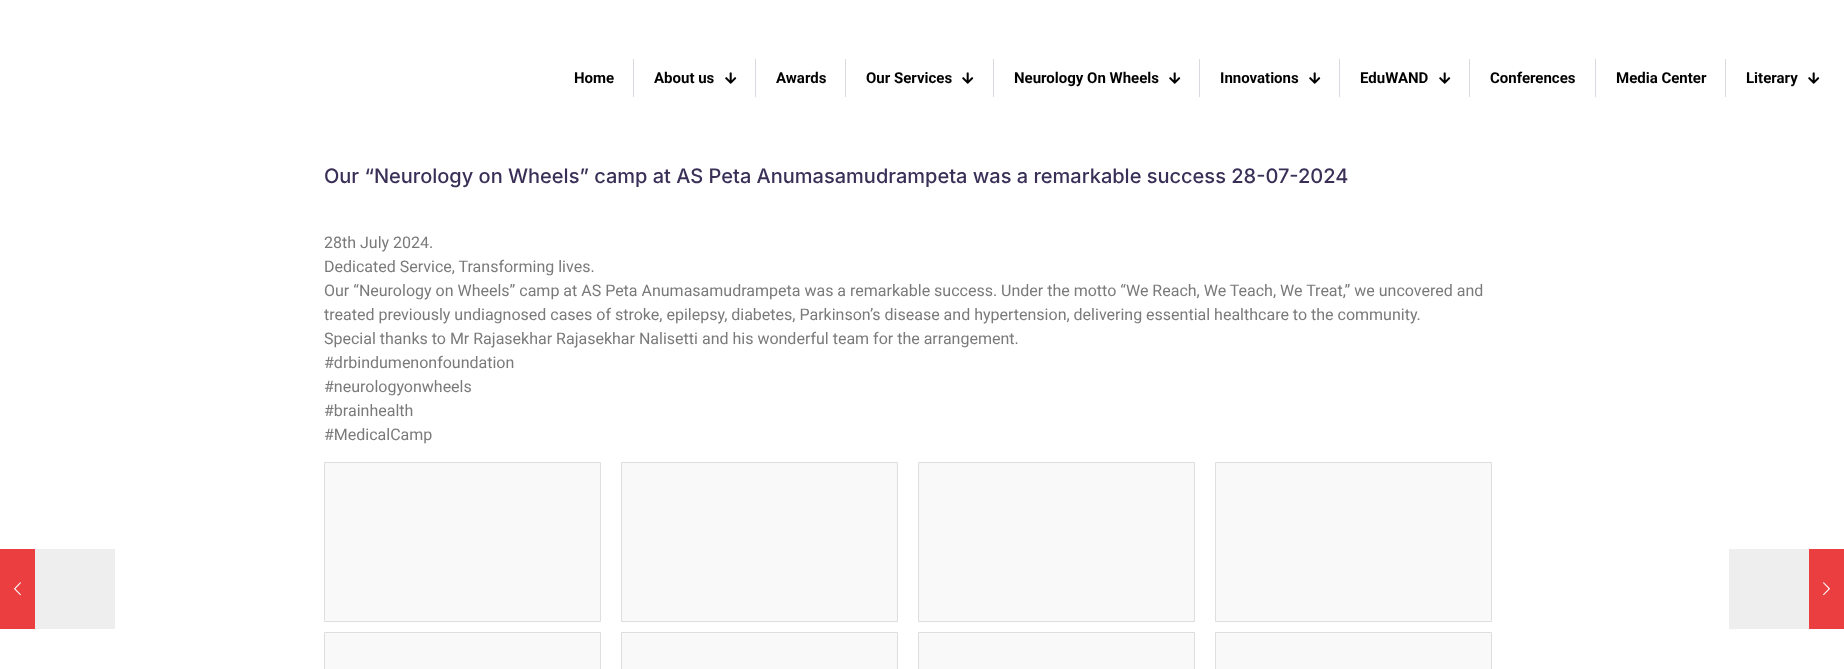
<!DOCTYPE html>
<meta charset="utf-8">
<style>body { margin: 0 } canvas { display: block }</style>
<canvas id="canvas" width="1844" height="669"></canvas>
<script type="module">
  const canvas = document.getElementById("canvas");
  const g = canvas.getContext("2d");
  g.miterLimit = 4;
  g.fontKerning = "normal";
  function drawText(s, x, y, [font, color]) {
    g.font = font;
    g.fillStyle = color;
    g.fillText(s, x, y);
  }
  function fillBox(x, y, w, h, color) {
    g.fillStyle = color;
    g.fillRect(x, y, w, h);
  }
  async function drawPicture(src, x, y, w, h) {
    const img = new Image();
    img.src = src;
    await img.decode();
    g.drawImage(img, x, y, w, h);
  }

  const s1 = ["bold 15px Roboto", "#000000"];
  const s2 = ["500 20px Inter", "#3A3057"];
  const s3 = ["16px Roboto", "#7A7A7A"];

  fillBox(0, 0, 1844, 669, "#FFFFFF");
  drawText("Home", 574, 83, s1);
  fillBox(633, 59, 1, 38, "#D9DADF");
  drawText("About us", 654, 83, s1);
  await drawPicture("pic1.png", 725, 72, 12, 12);
  fillBox(755, 59, 1, 38, "#D9DADF");
  drawText("Awards", 776, 83, s1);
  fillBox(845, 59, 1, 38, "#D9DADF");
  drawText("Our Services", 866, 83, s1);
  await drawPicture("pic1.png", 962, 72, 12, 12);
  fillBox(993, 59, 1, 38, "#D9DADF");
  drawText("Neurology On Wheels", 1014, 83, s1);
  await drawPicture("pic1.png", 1169, 72, 12, 12);
  fillBox(1199, 59, 1, 38, "#D9DADF");
  drawText("Innovations", 1220, 83, s1);
  await drawPicture("pic1.png", 1309, 72, 12, 12);
  fillBox(1339, 59, 1, 38, "#D9DADF");
  drawText("EduWAND", 1360, 83, s1);
  await drawPicture("pic1.png", 1439, 72, 12, 12);
  fillBox(1469, 59, 1, 38, "#D9DADF");
  drawText("Conferences", 1490, 83, s1);
  fillBox(1595, 59, 1, 38, "#D9DADF");
  drawText("Media Center", 1616, 83, s1);
  fillBox(1725, 59, 1, 38, "#D9DADF");
  drawText("Literary", 1746, 83, s1);
  await drawPicture("pic1.png", 1808, 72, 12, 12);
  drawText("Our “Neurology on Wheels” camp at AS Peta Anumasamudrampeta was a remarkable success 28-07-2024", 324, 183, s2);
  drawText("28th July 2024.", 324, 248, s3);
  drawText("Dedicated Service, Transforming lives.", 324, 272, s3);
  drawText("Our “Neurology on Wheels” camp at AS Peta Anumasamudrampeta was a remarkable success. Under the motto “We Reach, We Teach, We Treat,” we uncovered and", 324, 296, s3);
  drawText("treated previously undiagnosed cases of stroke, epilepsy, diabetes, Parkinson’s disease and hypertension, delivering essential healthcare to the community.", 324, 320, s3);
  drawText("Special thanks to Mr Rajasekhar Rajasekhar Nalisetti and his wonderful team for the arrangement.", 324, 344, s3);
  drawText("#drbindumenonfoundation", 324, 368, s3);
  drawText("#neurologyonwheels", 324, 392, s3);
  drawText("#brainhealth", 324, 416, s3);
  drawText("#MedicalCamp", 324, 440, s3);
  g.fillStyle = "#F9F9F9";
  g.beginPath();
  g.rect(324.5, 462.5, 276, 159);
  g.fill();
  g.strokeStyle = "#DEDEDE";
  g.stroke();
  g.beginPath();
  g.rect(621.5, 462.5, 276, 159);
  g.fill();
  g.stroke();
  g.beginPath();
  g.rect(918.5, 462.5, 276, 159);
  g.fill();
  g.stroke();
  g.beginPath();
  g.rect(1215.5, 462.5, 276, 159);
  g.fill();
  g.stroke();
  g.beginPath();
  g.rect(324.5, 632.5, 276, 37);
  g.fill();
  g.stroke();
  g.beginPath();
  g.rect(621.5, 632.5, 276, 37);
  g.fill();
  g.stroke();
  g.beginPath();
  g.rect(918.5, 632.5, 276, 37);
  g.fill();
  g.stroke();
  g.beginPath();
  g.rect(1215.5, 632.5, 276, 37);
  g.fill();
  g.stroke();
  fillBox(0, 549, 35, 80, "#EB3E40");
  await drawPicture("pic2.png", 14, 582, 7, 14);
  fillBox(35, 549, 80, 80, "#EEEEEE");
  fillBox(1729, 549, 80, 80, "#EEEEEE");
  fillBox(1809, 549, 35, 80, "#EB3E40");
  await drawPicture("pic3.png", 1823, 582, 7, 14);
</script>
